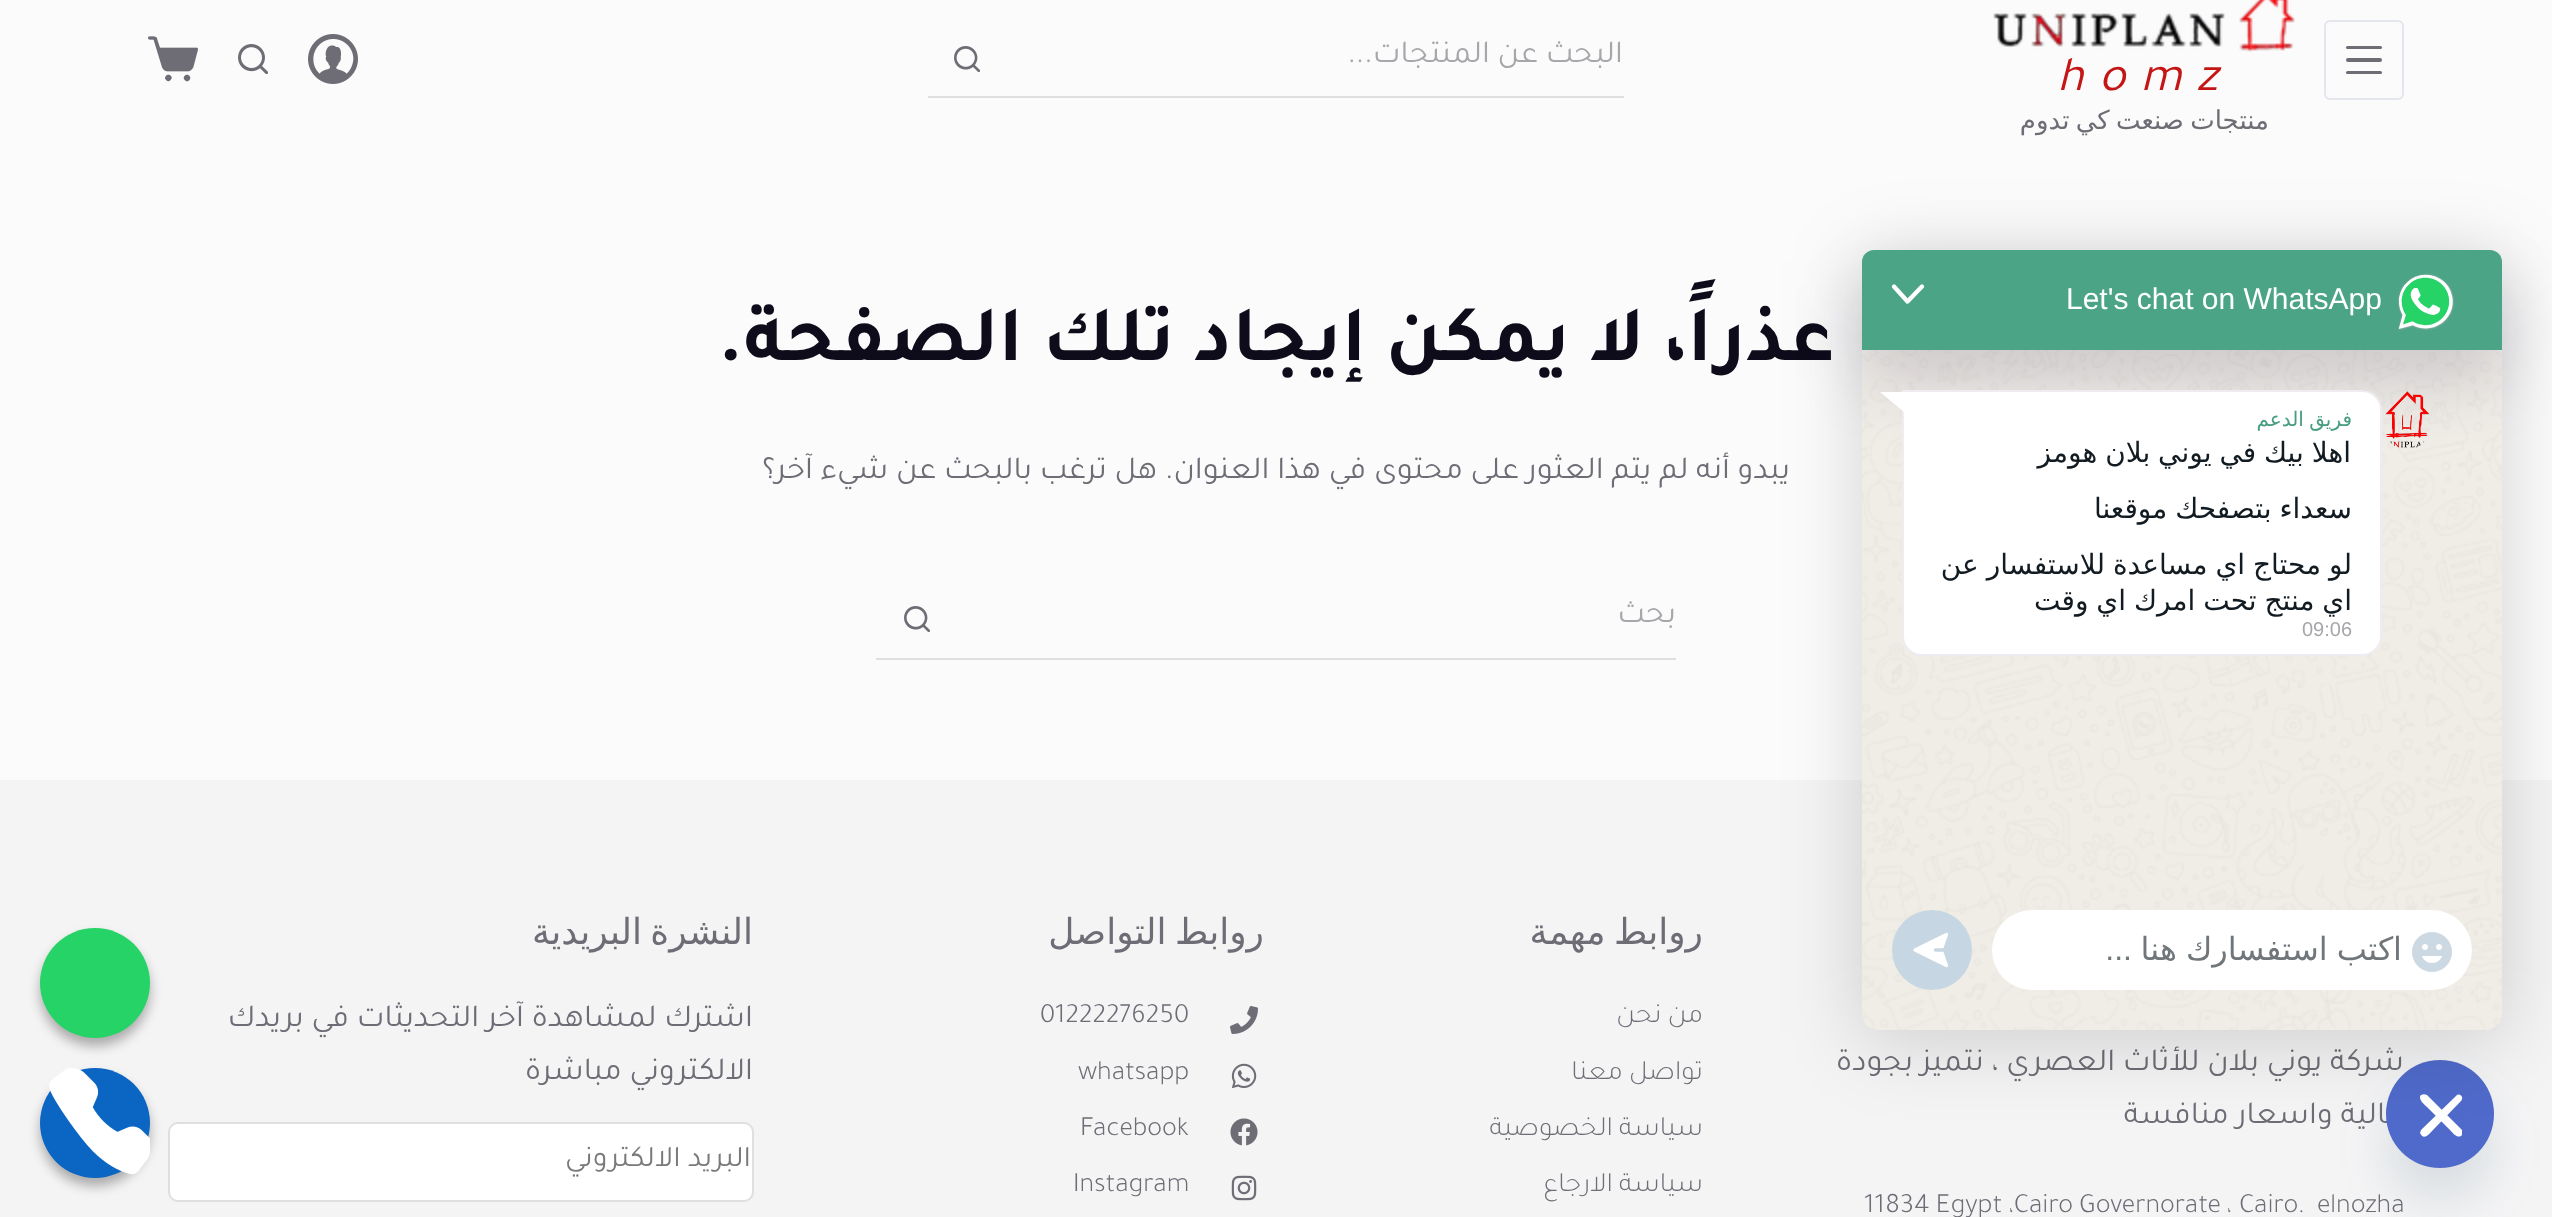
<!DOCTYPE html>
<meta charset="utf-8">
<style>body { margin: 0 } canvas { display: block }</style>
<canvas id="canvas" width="2552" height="1217"></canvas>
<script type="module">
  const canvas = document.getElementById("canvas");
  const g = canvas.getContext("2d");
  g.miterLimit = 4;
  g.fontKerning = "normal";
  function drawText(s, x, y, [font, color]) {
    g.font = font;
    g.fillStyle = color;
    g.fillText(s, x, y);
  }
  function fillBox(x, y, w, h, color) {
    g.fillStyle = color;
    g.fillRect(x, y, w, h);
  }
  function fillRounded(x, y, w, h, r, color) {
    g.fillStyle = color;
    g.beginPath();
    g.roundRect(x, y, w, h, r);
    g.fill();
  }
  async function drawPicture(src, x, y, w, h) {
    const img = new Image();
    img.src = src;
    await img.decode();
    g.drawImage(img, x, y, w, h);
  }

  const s1 = ["italic 50px Tajawal", "#C51616"];
  const s2 = ["26px DejaVu Sans", "#6E6D76"];
  const s3 = ["32px Tajawal", "#A6A6AB"];
  const s4 = ["bold 80px Tajawal", "#0E0C1B"];
  const s5 = ["32px Tajawal", "#6E6D76"];
  const s6 = ["300 28px Tajawal", "#6E6D76"];
  const s7 = ["36px DejaVu Sans", "#6E6D76"];
  const s8 = ["30px Tajawal", "#797A7C"];
  const s9 = ["30px Liberation Sans", "#FFFFFF"];
  const s10 = ["20px DejaVu Sans", "#489D81"];
  const s11 = ["28px DejaVu Sans", "#111B21"];
  const s12 = ["20px Liberation Sans", "#A6A6AB"];
  const s13 = ["32px DejaVu Sans", "#70767A"];
  const s14 = ["32px Liberation Sans", "#70767A"];

  fillBox(0, 0, 2552, 1217, "#FBFBFB");
  g.beginPath();
  g.roundRect(2325, 21, 78, 78, 5);
  g.strokeStyle = "#E3E7ED";
  g.lineWidth = 2;
  g.stroke();
  fillRounded(2346, 46, 36, 3, 1.5, "#6E6D76");
  fillRounded(2346, 58, 36, 4, 2, "#6E6D76");
  fillRounded(2346, 71, 36, 3, 1.5, "#6E6D76");
  await drawPicture("pic1.png", 1993, 0, 302, 52);
  g.letterSpacing = "15px";
  drawText("homz", 2057, 90, s1);
  g.letterSpacing = "0px";
  g.wordSpacing = "-2px";
  g.direction = "rtl";
  drawText("منتجات صنعت كي تدوم", 2269, 129, s2);
  fillBox(928, 96, 696, 2, "#DFDFE2");
  g.wordSpacing = "0px";
  drawText("البحث عن المنتجات...", 1623, 62, s3);
  await drawPicture("pic2.png", 954, 46, 26, 26);
  await drawPicture("pic3.png", 308, 34, 50, 50);
  await drawPicture("pic4.png", 238, 44, 30, 30);
  await drawPicture("pic5.png", 148, 36, 50, 46);
  drawText("عذراً، لا يمكن إيجاد تلك الصفحة.", 1835, 360, s4);
  drawText("يبدو أنه لم يتم العثور على محتوى في هذا العنوان. هل ترغب بالبحث عن شيء آخر؟", 1790, 478, s5);
  fillBox(876, 658, 800, 2, "#DFDFE2");
  drawText("بحث", 1676, 622, s3);
  await drawPicture("pic2.png", 904, 606, 26, 26);
  fillBox(0, 780, 2552, 437, "#F4F4F5");
  drawText("شركة يوني بلان للأثاث العصري ، نتميز بجودة", 2404, 1070, s5);
  drawText("عالية واسعار منافسة", 2404, 1123, s5);
  g.direction = "ltr";
  drawText("elnozha", 2317, 1212, s6);
  g.direction = "rtl";
  drawText(" .", 2311, 1212, s6);
  g.direction = "ltr";
  drawText(" Cairo", 2233, 1212, s6);
  g.direction = "rtl";
  drawText("، ", 2232, 1212, s6);
  g.direction = "ltr";
  drawText("Cairo Governorate", 2014, 1212, s6);
  g.direction = "rtl";
  drawText("، ", 2014, 1212, s6);
  g.direction = "ltr";
  drawText("11834 Egypt", 1864, 1212, s6);
  g.wordSpacing = "-3px";
  g.direction = "rtl";
  drawText("روابط مهمة", 1703, 944, s7);
  g.wordSpacing = "0px";
  drawText("من نحن", 1703, 1022, s6);
  drawText("تواصل معنا", 1703, 1079, s6);
  drawText("سياسة الخصوصية", 1703, 1135, s6);
  drawText("سياسة الارجاع", 1703, 1191, s6);
  g.wordSpacing = "-3px";
  drawText("روابط التواصل", 1264, 944, s7);
  await drawPicture("pic6.png", 1230, 1006, 28, 28);
  g.wordSpacing = "0px";
  g.direction = "ltr";
  drawText("01222276250", 1040, 1022, s6);
  await drawPicture("pic7.png", 1231, 1063, 26, 26);
  drawText("whatsapp", 1078, 1079, s6);
  await drawPicture("pic8.png", 1230, 1118, 28, 28);
  drawText("Facebook", 1080, 1135, s6);
  await drawPicture("pic9.png", 1231, 1175, 26, 26);
  drawText("Instagram", 1073, 1191, s6);
  g.wordSpacing = "-3px";
  g.direction = "rtl";
  drawText("النشرة البريدية", 753, 944, s7);
  g.wordSpacing = "0px";
  drawText("اشترك لمشاهدة آخر التحديثات في بريدك", 753, 1026, s5);
  drawText("الالكتروني مباشرة", 753, 1079, s5);
  g.fillStyle = "#FFFFFF";
  g.beginPath();
  g.roundRect(169, 1123, 584, 78, 9);
  g.fill();
  g.strokeStyle = "#DFDFE2";
  g.stroke();
  drawText("البريد الالكتروني", 751, 1166, s8);
  g.fillStyle = "rgba(73, 104, 126, 0.16)";
  g.filter = "blur(24px)";
  g.beginPath();
  g.roundRect(2386, 1092, 108, 108, 54);
  g.fill();
  g.filter = "none";
  g.fillStyle = "#4F6ACA";
  g.beginPath();
  g.arc(2440, 1114, 54, 0, Math.PI * 2);
  g.fill();
  g.fillStyle = "#FFFFFF";
  g.beginPath();
  g.moveTo(2427, 1095);
  g.lineTo(2462, 1130);
  g.bezierCurveTo(2462, 1132, 2462, 1133, 2462, 1135);
  g.bezierCurveTo(2458, 1140, 2452, 1132, 2450, 1130);
  g.lineTo(2427, 1107);
  g.bezierCurveTo(2426, 1106, 2417, 1099, 2421, 1095);
  g.bezierCurveTo(2423, 1094, 2425, 1094, 2427, 1095);
  g.closePath();
  g.fill();
  g.beginPath();
  g.moveTo(2461, 1101);
  g.lineTo(2433, 1130);
  g.bezierCurveTo(2431, 1132, 2426, 1139, 2422, 1136);
  g.lineTo(2420, 1133);
  g.lineTo(2421, 1130);
  g.lineTo(2457, 1095);
  g.bezierCurveTo(2461, 1093, 2464, 1098, 2461, 1101);
  g.closePath();
  g.fill();
  g.fillStyle = "rgba(0, 0, 0, 0.16)";
  g.filter = "blur(40px)";
  g.beginPath();
  g.roundRect(1862, 260, 640, 780, 12);
  g.fill();
  g.filter = "none";
  fillRounded(1862, 250, 640, 780, 16, "#F0EDE7");
  await drawPicture("pic11.png", 1862, 350, 640, 680);
  g.fillStyle = "rgba(26, 14, 53, 0.16)";
  g.filter = "blur(32px)";
  g.beginPath();
  g.roundRect(1862, 282, 640, 100, 12);
  g.fill();
  g.filter = "none";
  g.fillStyle = "#4AA485";
  g.beginPath();
  g.roundRect(1862, 250, 640, 100, [12, 12, 0, 0]);
  g.fill();
  await drawPicture("pic10.png", 2397, 273, 58, 58);
  g.direction = "ltr";
  drawText("Let's chat on WhatsApp", 2066, 309, s9);
  g.beginPath();
  g.moveTo(1894, 286.5);
  g.lineTo(1907.5, 301.5);
  g.lineTo(1922, 286.5);
  g.strokeStyle = "#FFFFFF";
  g.lineWidth = 4.3;
  g.lineCap = "round";
  g.lineJoin = "round";
  g.stroke();
  await drawPicture("pic12.png", 2385, 391, 45, 57);
  g.beginPath();
  g.roundRect(1902, 390, 480, 266, [0, 20, 20, 20]);
  g.fill();
  g.beginPath();
  g.roundRect(1903, 391, 478, 264, [0, 19, 19, 19]);
  g.strokeStyle = "rgba(34, 17, 71, 0.08)";
  g.lineWidth = 2;
  g.lineJoin = "miter";
  g.stroke();
  g.beginPath();
  g.moveTo(1904, 392);
  g.lineTo(1904, 412);
  g.lineTo(1880, 392);
  g.closePath();
  g.fill();
  g.wordSpacing = "-1px";
  g.direction = "rtl";
  drawText("فريق الدعم", 2352, 426, s10);
  drawText("اهلا بيك في يوني بلان هومز", 2351, 462, s11);
  drawText("سعداء بتصفحك موقعنا", 2352, 518, s11);
  drawText("لو محتاج اي مساعدة للاستفسار عن", 2352, 574, s11);
  drawText("اي منتج تحت امرك اي وقت", 2352, 610, s11);
  g.wordSpacing = "0px";
  g.direction = "ltr";
  drawText("09:06", 2302, 636, s12);
  fillRounded(1992, 910, 480, 80, 40, "#FFFFFF");
  await drawPicture("pic13.png", 2412, 932, 40, 40);
  g.wordSpacing = "-1px";
  g.direction = "rtl";
  drawText("اكتب استفسارك هنا", 2402, 960, s13);
  g.wordSpacing = "0px";
  drawText("...", 2132, 960, s14);
  g.fillStyle = "#C6D7E3";
  g.beginPath();
  g.arc(1932, 950, 40, 0, Math.PI * 2);
  g.fill();
  g.fillStyle = "#FFFFFF";
  g.beginPath();
  g.moveTo(1915, 950);
  g.lineTo(1946.5, 934.5);
  g.lineTo(1941, 950);
  g.lineTo(1946.5, 965.5);
  g.closePath();
  g.fill();
  g.strokeStyle = "#FFFFFF";
  g.lineWidth = 3.3;
  g.lineJoin = "round";
  g.stroke();
  g.beginPath();
  g.moveTo(1935.5, 950);
  g.lineTo(1946, 950);
  g.strokeStyle = "#C6D7E3";
  g.stroke();
  g.fillStyle = "rgba(0, 0, 0, 0.3)";
  g.filter = "blur(6px)";
  g.beginPath();
  g.roundRect(40, 936, 110, 110, 55);
  g.fill();
  g.filter = "none";
  g.fillStyle = "#25D366";
  g.beginPath();
  g.arc(95, 983, 55, 0, Math.PI * 2);
  g.fill();
  g.fillStyle = "rgba(0, 0, 0, 0.3)";
  g.filter = "blur(6px)";
  g.beginPath();
  g.roundRect(40, 1076, 110, 110, 55);
  g.fill();
  g.filter = "none";
  g.fillStyle = "#0A66C2";
  g.beginPath();
  g.arc(95, 1123, 55, 0, Math.PI * 2);
  g.fill();
  await drawPicture("pic14.png", 49, 1068, 101, 107);
</script>
